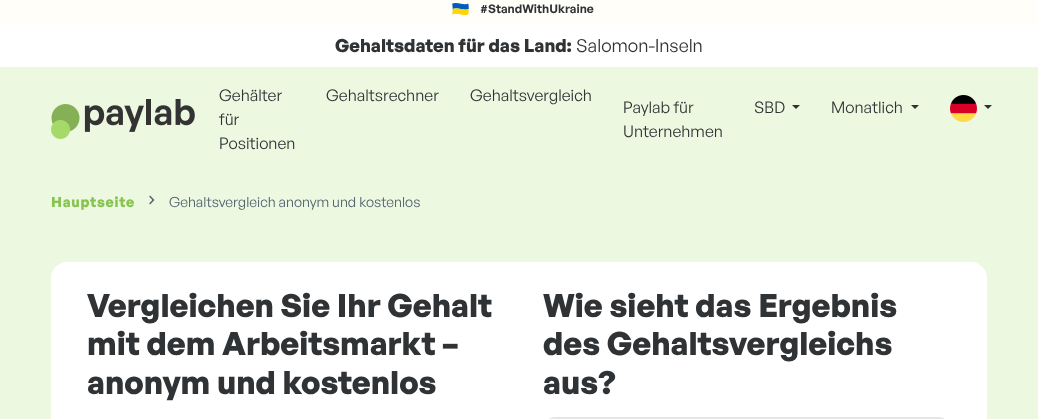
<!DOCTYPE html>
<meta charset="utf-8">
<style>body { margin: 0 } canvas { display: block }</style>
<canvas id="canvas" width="1038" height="419"></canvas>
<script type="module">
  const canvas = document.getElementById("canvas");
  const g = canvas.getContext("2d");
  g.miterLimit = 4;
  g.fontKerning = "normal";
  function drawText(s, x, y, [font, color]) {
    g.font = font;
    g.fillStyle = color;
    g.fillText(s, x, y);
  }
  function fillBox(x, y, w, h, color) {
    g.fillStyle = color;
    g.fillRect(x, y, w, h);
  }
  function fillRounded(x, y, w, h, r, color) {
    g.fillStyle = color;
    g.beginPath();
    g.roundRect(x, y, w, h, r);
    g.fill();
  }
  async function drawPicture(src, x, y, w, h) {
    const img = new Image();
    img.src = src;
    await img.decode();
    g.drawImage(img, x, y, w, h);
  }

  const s1 = ["600 12px General Sans", "#303335"];
  const s2 = ["bold 18px General Sans", "#303335"];
  const s3 = ["18px General Sans", "#303335"];
  const s4 = ["16px General Sans", "#303335"];
  const s5 = ["bold 14px General Sans", "#86C450"];
  const s6 = ["14px General Sans", "#51616E"];
  const s7 = ["bold 32px General Sans", "#303335"];

  fillBox(0, 0, 1038, 419, "#EDF8E1");
  fillBox(0, 0, 1038, 24, "#FFFEF8");
  await drawPicture("pic1.png", 452, 3, 17, 12);
  drawText("#StandWithUkraine", 480, 13, s1);
  fillBox(0, 24, 1038, 43, "#FFFFFF");
  drawText("Gehaltsdaten für das Land:", 335, 52, s2);
  drawText("Salomon-Inseln", 576, 52, s3);
  await drawPicture("pic2.png", 51, 99, 144, 40);
  drawText("Gehälter", 219, 101, s4);
  drawText("für", 219, 125, s4);
  drawText("Positionen", 219, 149, s4);
  drawText("Gehaltsrechner", 326, 101, s4);
  drawText("Gehaltsvergleich", 470, 101, s4);
  drawText("Paylab für", 623, 113, s4);
  drawText("Unternehmen", 623, 137, s4);
  drawText("SBD", 754, 113, s4);
  g.beginPath();
  g.moveTo(792, 105);
  g.lineTo(800, 105);
  g.lineTo(796, 109);
  g.closePath();
  g.fill();
  drawText("Monatlich", 831, 113, s4);
  g.beginPath();
  g.moveTo(911, 105);
  g.lineTo(919, 105);
  g.lineTo(915, 109);
  g.closePath();
  g.fill();
  await drawPicture("pic3.png", 950, 95, 27, 27);
  g.beginPath();
  g.moveTo(984, 105);
  g.lineTo(992, 105);
  g.lineTo(988, 109);
  g.closePath();
  g.fill();
  g.letterSpacing = "0.75px";
  drawText("Hauptseite", 51, 207, s5);
  await drawPicture("pic4.png", 149, 195, 6, 10);
  g.letterSpacing = "0px";
  drawText("Gehaltsvergleich anonym und kostenlos", 169, 207, s6);
  fillRounded(51, 262, 936, 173, 16, "#FFFFFF");
  drawText("Vergleichen Sie Ihr Gehalt", 87, 317, s7);
  drawText("mit dem Arbeitsmarkt –", 87, 355, s7);
  drawText("anonym und kostenlos", 87, 394, s7);
  drawText("Wie sieht das Ergebnis", 543, 317, s7);
  drawText("des Gehaltsvergleichs", 543, 355, s7);
  drawText("aus?", 543, 394, s7);
  g.beginPath();
  g.roundRect(547, 421, 400, 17, 11);
  g.strokeStyle = "#E4E5E6";
  g.lineWidth = 8;
  g.stroke();
</script>
